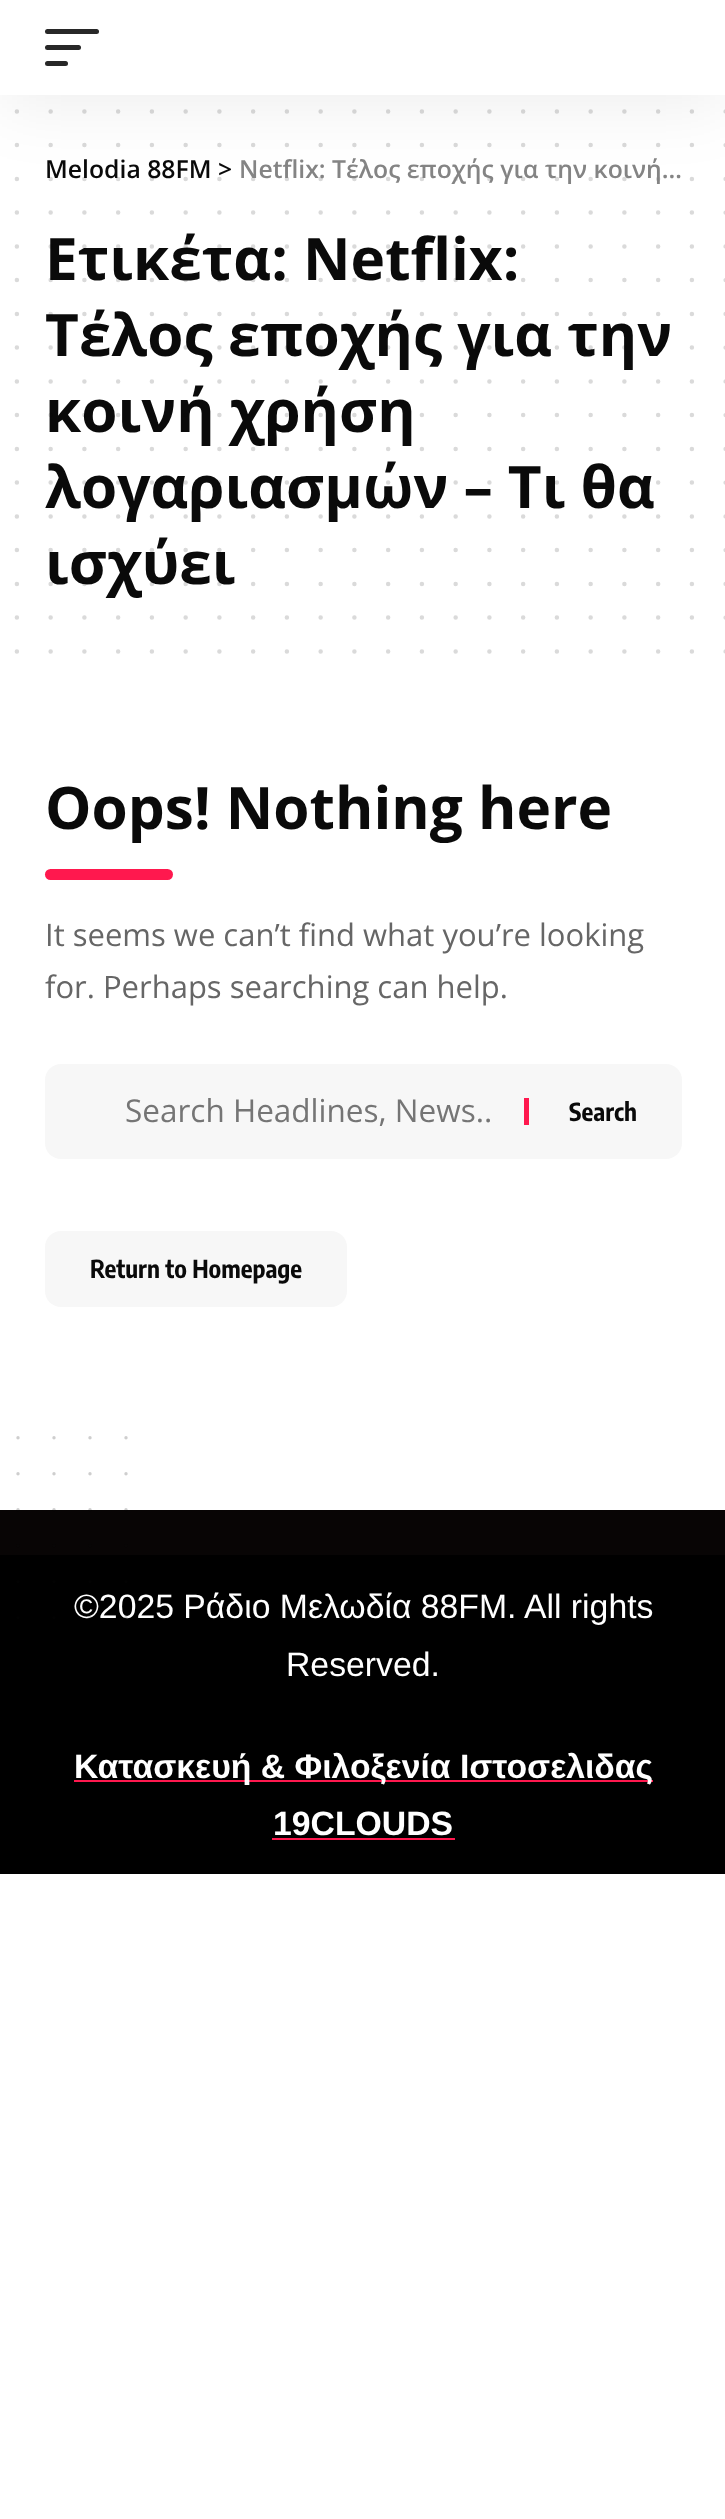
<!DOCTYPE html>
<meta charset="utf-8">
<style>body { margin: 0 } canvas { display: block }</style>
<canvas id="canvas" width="725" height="2519"></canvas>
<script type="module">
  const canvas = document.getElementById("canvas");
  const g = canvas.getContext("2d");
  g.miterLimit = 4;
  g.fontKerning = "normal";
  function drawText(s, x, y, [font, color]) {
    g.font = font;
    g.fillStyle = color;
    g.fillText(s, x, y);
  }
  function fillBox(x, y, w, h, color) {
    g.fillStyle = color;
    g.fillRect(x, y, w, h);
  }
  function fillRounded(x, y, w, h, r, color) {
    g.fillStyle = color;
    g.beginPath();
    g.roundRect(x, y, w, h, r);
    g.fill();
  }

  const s1 = ["600 24.75px Open Sans", "#0A0A0A"];
  const s2 = ["bold 58.5px Open Sans", "#0A0A0A"];
  const s3 = ["600 24.75px Open Sans", "#848484"];
  const s4 = ["31px Open Sans", "#666666"];
  const s5 = ["31.5px Open Sans", "#757575"];
  const s6 = ["bold 24.75px Encode Sans Condensed", "#0A0A0A"];
  const s7 = ["33.75px Liberation Sans", "#FFFFFF"];
  const s8 = ["bold 33.75px Liberation Sans", "#FFFFFF"];

  fillBox(0, 0, 725, 2519, "#FFFFFF");
  g.beginPath();
  g.moveTo(16.9, 111.4);
  g.lineTo(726.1, 111.4);
  g.strokeStyle = "#DADADA";
  g.lineWidth = 4.5;
  g.lineCap = "round";
  g.setLineDash([0, 33.75]);
  g.stroke();
  g.beginPath();
  g.moveTo(16.9, 145.1);
  g.lineTo(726.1, 145.1);
  g.stroke();
  drawText("Melodia 88FM >", 45, 178, s1);
  g.beginPath();
  g.moveTo(16.9, 178.9);
  g.lineTo(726.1, 178.9);
  g.strokeStyle = "rgba(10, 10, 10, 0.15)";
  g.stroke();
  g.fillStyle = "rgba(0, 0, 0, 0.07)";
  g.filter = "blur(34px)";
  g.beginPath();
  g.rect(0, 9, 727, 95);
  g.fill();
  g.filter = "none";
  fillBox(0, 0, 725, 95, "#FFFFFF");
  fillRounded(45, 29, 54, 5, 2.5, "#282828");
  fillRounded(45, 45, 36, 5, 2.5, "#282828");
  fillRounded(45, 61, 23, 5, 2.5, "#282828");
  g.beginPath();
  g.moveTo(16.9, 212.6);
  g.lineTo(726.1, 212.6);
  g.strokeStyle = "#DADADA";
  g.stroke();
  drawText("Ετικέτα: Netflix:", 45, 280, s2);
  g.beginPath();
  g.moveTo(16.9, 246.4);
  g.lineTo(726.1, 246.4);
  g.strokeStyle = "rgba(10, 10, 10, 0.15)";
  g.stroke();
  g.beginPath();
  g.moveTo(16.9, 280.1);
  g.lineTo(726.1, 280.1);
  g.stroke();
  drawText("Tέλος εποχής για την", 45, 356, s2);
  g.beginPath();
  g.moveTo(16.9, 313.9);
  g.lineTo(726.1, 313.9);
  g.stroke();
  g.beginPath();
  g.moveTo(16.9, 347.6);
  g.lineTo(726.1, 347.6);
  g.stroke();
  g.beginPath();
  g.moveTo(16.9, 381.4);
  g.lineTo(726.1, 381.4);
  g.strokeStyle = "#DADADA";
  g.stroke();
  drawText("κοινή χρήση", 45, 432, s2);
  g.beginPath();
  g.moveTo(16.9, 415.1);
  g.lineTo(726.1, 415.1);
  g.strokeStyle = "rgba(10, 10, 10, 0.15)";
  g.stroke();
  g.beginPath();
  g.moveTo(16.9, 448.9);
  g.lineTo(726.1, 448.9);
  g.strokeStyle = "#DADADA";
  g.stroke();
  drawText("λογαριασμών – Τι θα", 45, 508, s2);
  g.beginPath();
  g.moveTo(16.9, 482.6);
  g.lineTo(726.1, 482.6);
  g.strokeStyle = "rgba(10, 10, 10, 0.15)";
  g.stroke();
  g.beginPath();
  g.moveTo(16.9, 516.4);
  g.lineTo(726.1, 516.4);
  g.strokeStyle = "#DADADA";
  g.stroke();
  drawText("ισχύει", 45, 584, s2);
  g.beginPath();
  g.moveTo(16.9, 550.1);
  g.lineTo(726.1, 550.1);
  g.strokeStyle = "rgba(10, 10, 10, 0.15)";
  g.stroke();
  g.beginPath();
  g.moveTo(16.9, 583.9);
  g.lineTo(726.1, 583.9);
  g.stroke();
  g.beginPath();
  g.moveTo(16.9, 617.6);
  g.lineTo(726.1, 617.6);
  g.strokeStyle = "#DADADA";
  g.stroke();
  g.beginPath();
  g.moveTo(16.9, 651.4);
  g.lineTo(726.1, 651.4);
  g.stroke();
  drawText("Netflix: Tέλος εποχής για την κοινή…", 239, 178, s3);
  drawText("Oops! Nothing here", 45, 829, s2);
  fillRounded(45, 869, 128, 11, 5.5, "#FF184E");
  drawText("It seems we can’t find what you’re looking", 45, 946, s4);
  drawText("for. Perhaps searching can help.", 45, 998, s4);
  fillRounded(45, 1064, 637, 95, 16, "#F7F7F7");
  drawText("Search Headlines, News..", 125, 1122, s5);
  fillBox(524, 1098, 5, 27, "#FF184E");
  drawText("Search", 569, 1121, s6);
  fillRounded(45, 1231, 302, 76, 16, "#F7F7F7");
  drawText("Return to Homepage", 90, 1278, s6);
  fillBox(0, 1510, 725, 45, "#080505");
  fillBox(0, 1555, 725, 319, "#000000");
  g.beginPath();
  g.moveTo(18, 1437.8);
  g.lineTo(18, 1618.2);
  g.strokeStyle = "rgba(10, 10, 10, 0.2)";
  g.lineWidth = 3.4;
  g.setLineDash([0, 36]);
  g.stroke();
  g.beginPath();
  g.moveTo(54, 1437.8);
  g.lineTo(54, 1618.2);
  g.stroke();
  drawText("©2025 Ράδιο Μελωδία 88FM. All rights", 74, 1618, s7);
  g.beginPath();
  g.moveTo(90, 1437.8);
  g.lineTo(90, 1618.2);
  g.stroke();
  g.beginPath();
  g.moveTo(126, 1437.8);
  g.lineTo(126, 1618.2);
  g.stroke();
  drawText("Reserved.", 286, 1676, s7);
  fillBox(74, 1780, 579, 2, "#FF184E");
  drawText("Κατασκευή & Φιλοξενία Ιστοσελιδας", 74, 1778, s8);
  drawText("19CLOUDS", 273, 1835, s8);
  fillBox(272, 1838, 183, 2, "#FF184E");
</script>
